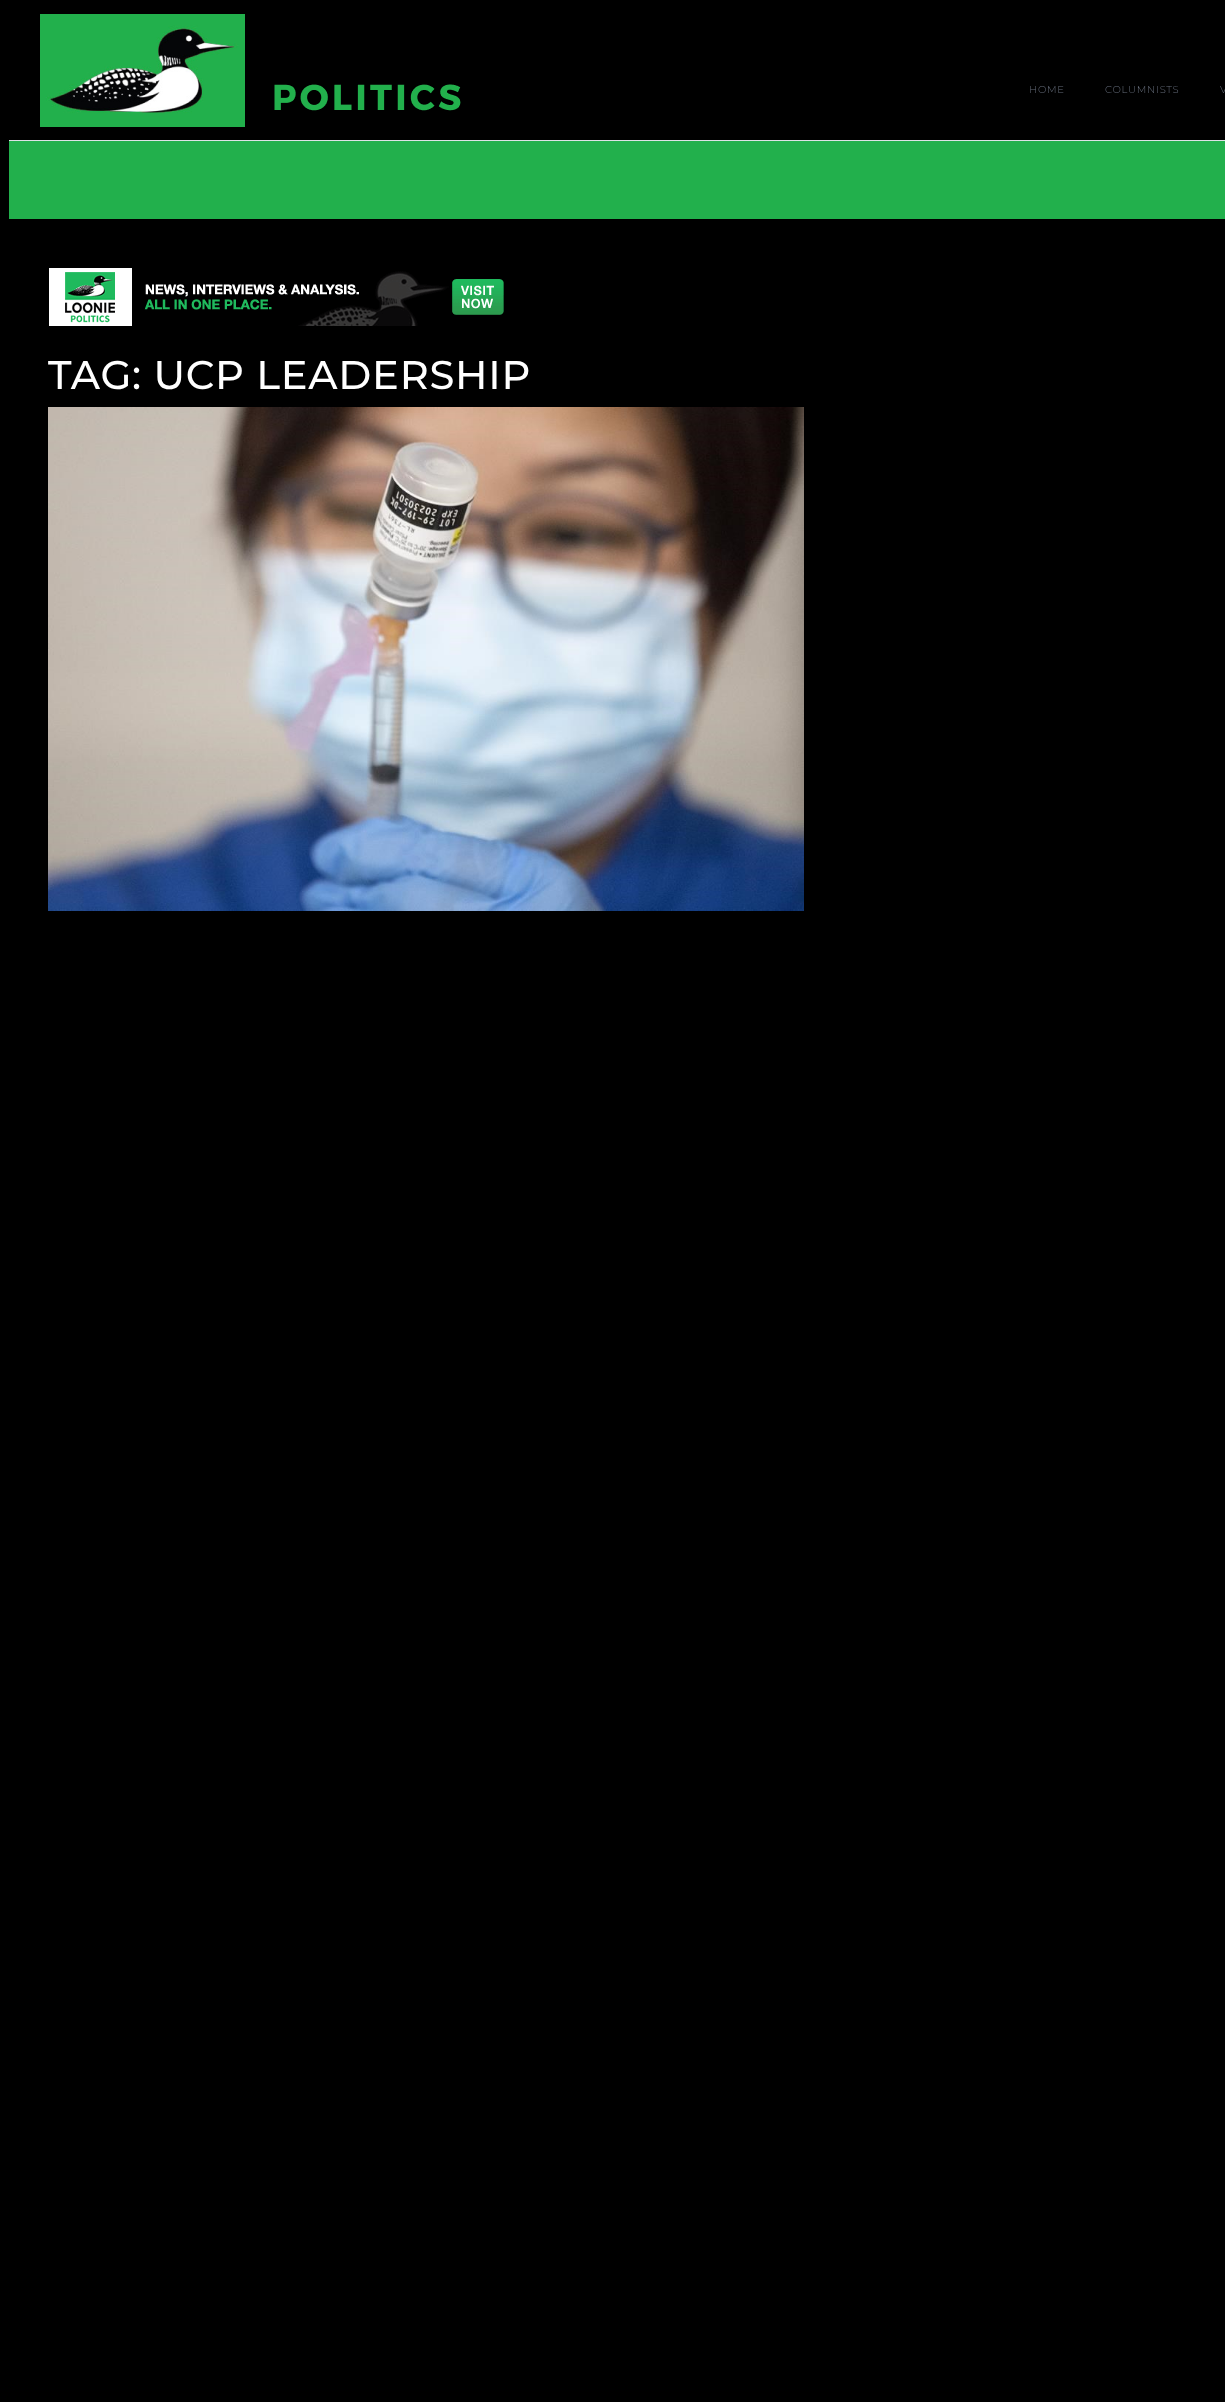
<!DOCTYPE html>
<meta charset="utf-8">
<style>body { margin: 0 } canvas { display: block }</style>
<canvas id="canvas" width="1225" height="2402"></canvas>
<script type="module">
  const canvas = document.getElementById("canvas");
  const g = canvas.getContext("2d");
  g.miterLimit = 4;
  g.fontKerning = "normal";
  function drawText(s, x, y, [font, color]) {
    g.font = font;
    g.fillStyle = color;
    g.fillText(s, x, y);
  }
  function fillBox(x, y, w, h, color) {
    g.fillStyle = color;
    g.fillRect(x, y, w, h);
  }
  async function drawPicture(src, x, y, w, h) {
    const img = new Image();
    img.src = src;
    await img.decode();
    g.drawImage(img, x, y, w, h);
  }

  const s1 = ["300 10px Montserrat", "#656C7A"];
  const s2 = ["500 40px Montserrat", "#FFFFFF"];

  fillBox(0, 0, 1225, 2402, "#000000");
  fillBox(9, 140, 1216, 1, "#DEE2E6");
  await drawPicture("pic1.png", 40, 14, 421, 113);
  g.letterSpacing = "0.75px";
  drawText("HOME", 1029, 93, s1);
  drawText("COLUMNISTS", 1105, 93, s1);
  drawText("V", 1220, 93, s1);
  fillBox(9, 141, 1216, 78, "#22B04C");
  await drawPicture("pic2.png", 49, 268, 455, 58);
  drawText("TAG: UCP LEADERSHIP", 48, 389, s2);
  await drawPicture("pic3.png", 48, 407, 756, 504);
</script>
